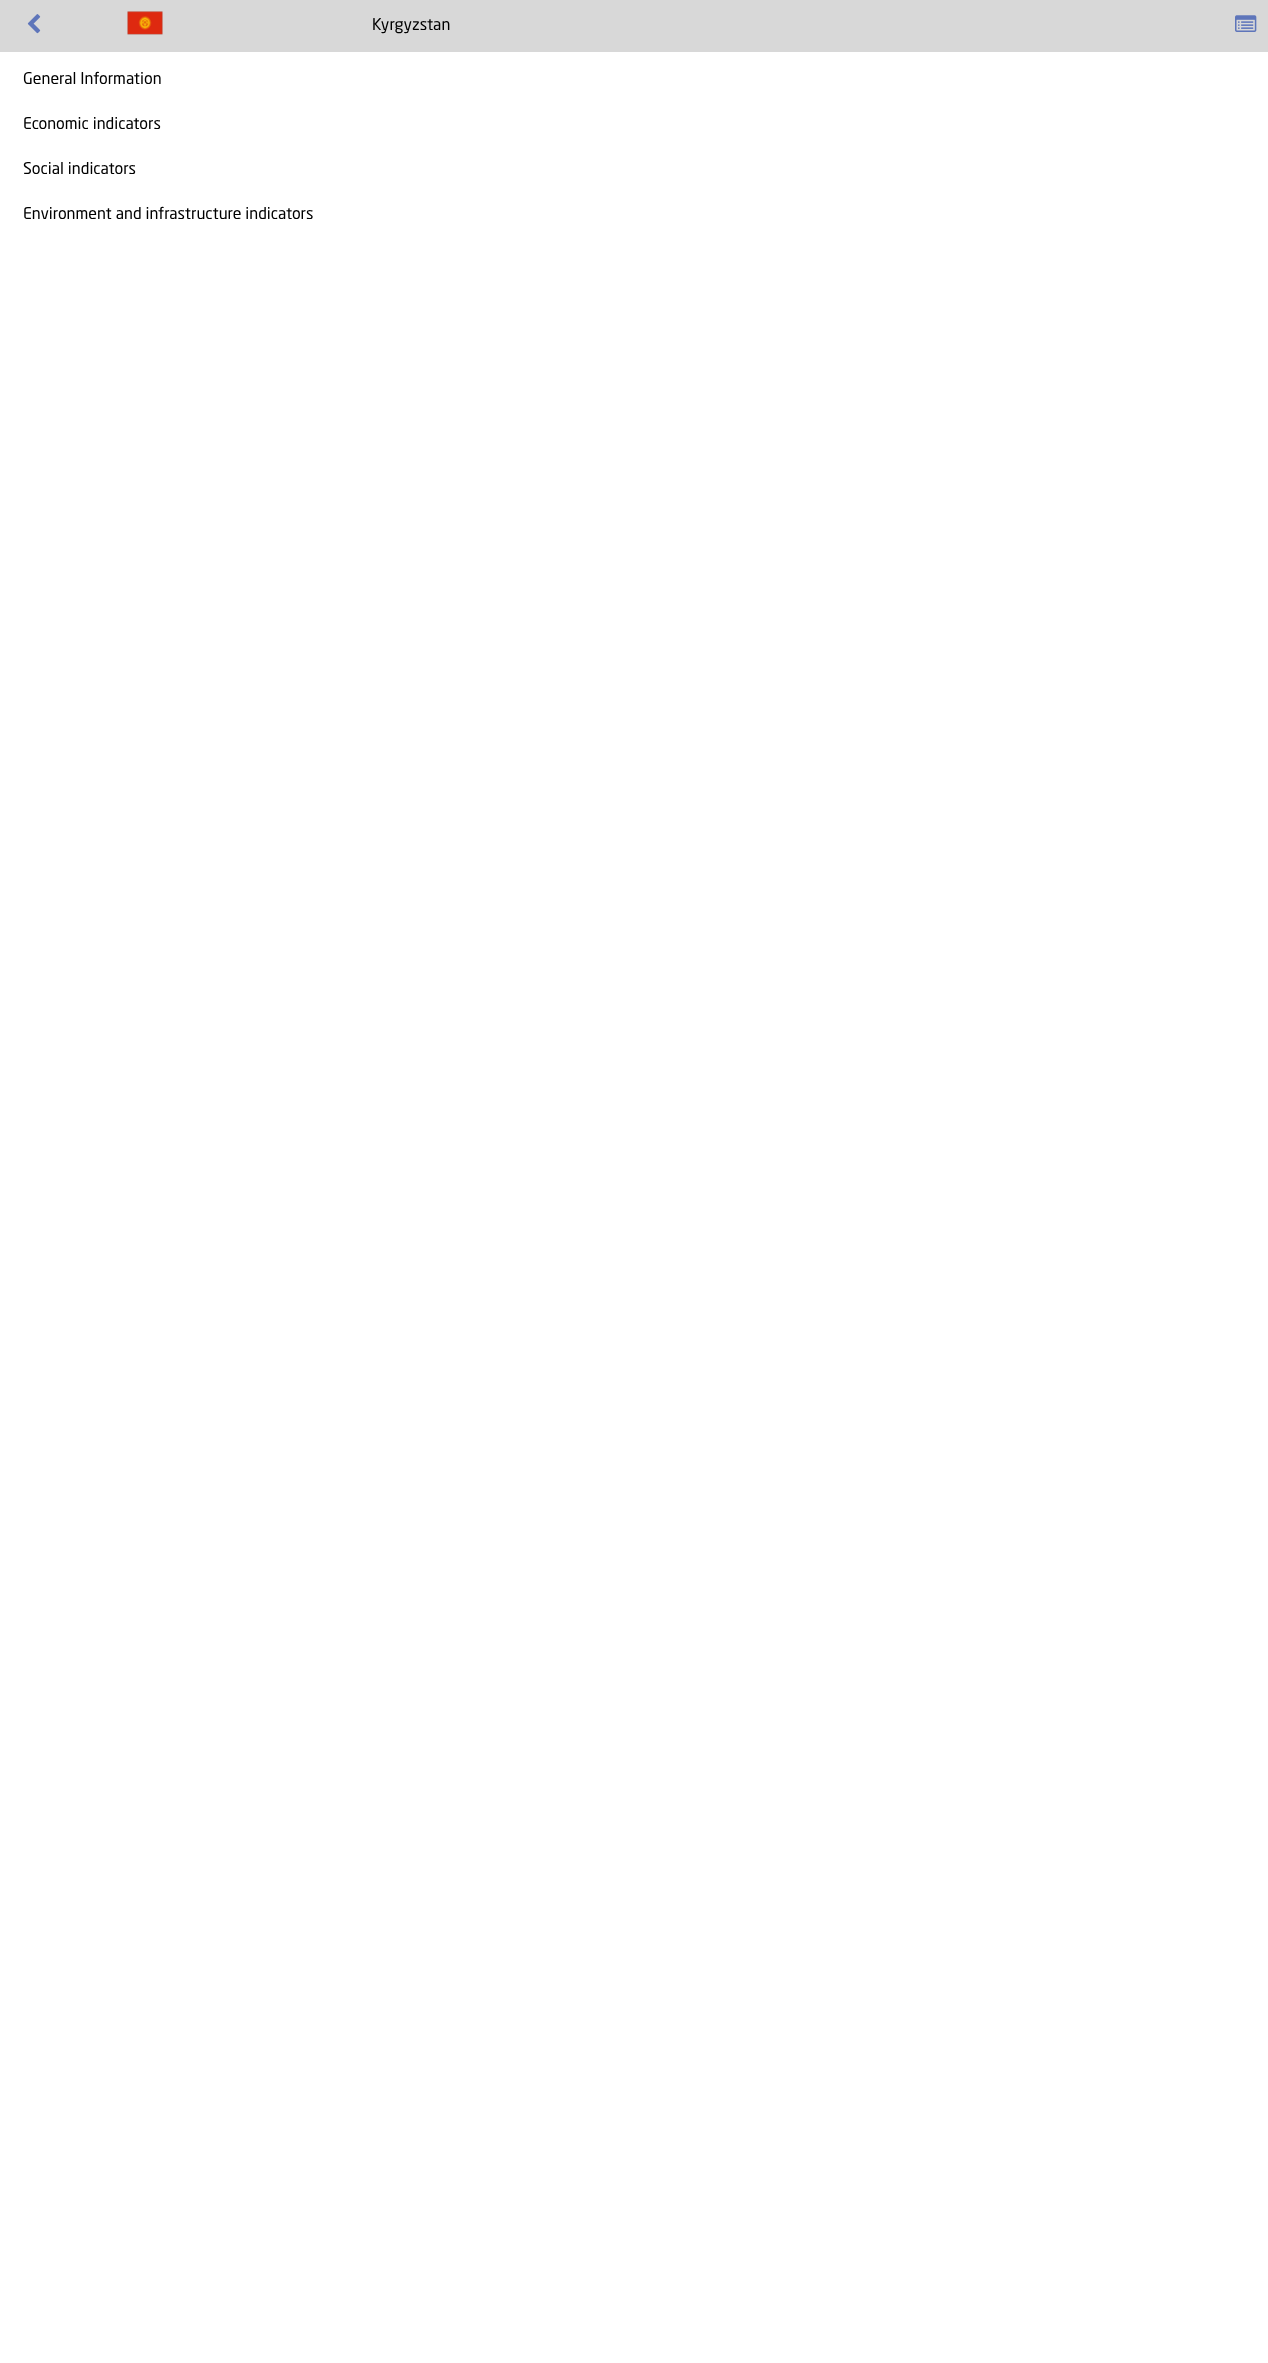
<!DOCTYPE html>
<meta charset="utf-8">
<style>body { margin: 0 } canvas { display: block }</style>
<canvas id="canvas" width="1268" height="2363"></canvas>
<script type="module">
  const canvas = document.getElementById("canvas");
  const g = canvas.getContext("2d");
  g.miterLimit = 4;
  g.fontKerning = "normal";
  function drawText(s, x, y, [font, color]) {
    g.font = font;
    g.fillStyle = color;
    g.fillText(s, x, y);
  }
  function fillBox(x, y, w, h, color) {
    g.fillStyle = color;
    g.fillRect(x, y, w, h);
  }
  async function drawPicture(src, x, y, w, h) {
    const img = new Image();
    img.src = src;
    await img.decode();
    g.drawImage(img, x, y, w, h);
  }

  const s1 = ["16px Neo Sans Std", "#000000"];

  fillBox(0, 0, 1268, 2363, "#FFFFFF");
  fillBox(0, 0, 1268, 52, "#D8D8D8");
  await drawPicture("pic1.png", 27, 14, 14, 20);
  await drawPicture("pic2.png", 127, 11, 36, 24);
  drawText("Kyrgyzstan", 372, 30, s1);
  await drawPicture("pic3.png", 1235, 15, 22, 17);
  drawText("General Information", 23, 84, s1);
  drawText("Economic indicators", 23, 129, s1);
  drawText("Social indicators", 23, 174, s1);
  drawText("Environment and infrastructure indicators", 23, 219, s1);
</script>
